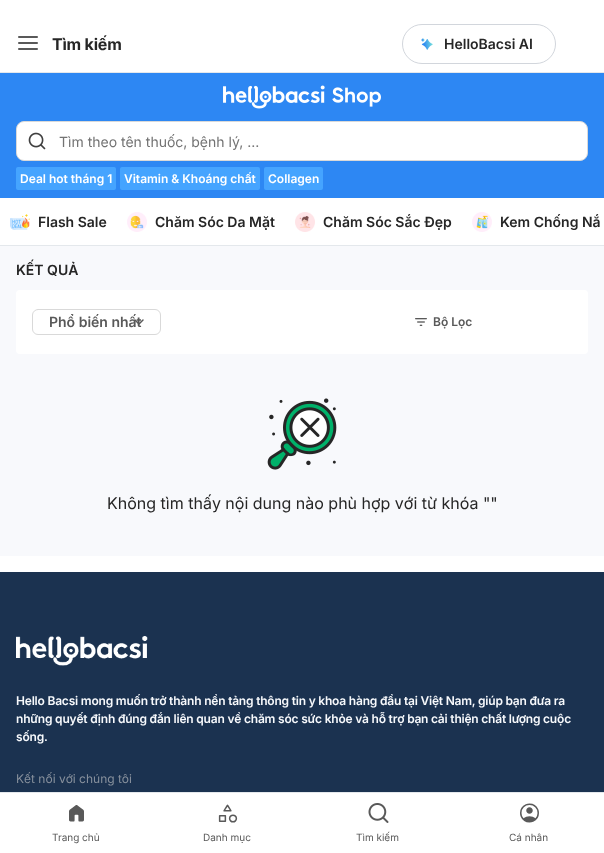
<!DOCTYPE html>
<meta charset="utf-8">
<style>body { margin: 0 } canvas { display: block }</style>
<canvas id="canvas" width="604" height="853"></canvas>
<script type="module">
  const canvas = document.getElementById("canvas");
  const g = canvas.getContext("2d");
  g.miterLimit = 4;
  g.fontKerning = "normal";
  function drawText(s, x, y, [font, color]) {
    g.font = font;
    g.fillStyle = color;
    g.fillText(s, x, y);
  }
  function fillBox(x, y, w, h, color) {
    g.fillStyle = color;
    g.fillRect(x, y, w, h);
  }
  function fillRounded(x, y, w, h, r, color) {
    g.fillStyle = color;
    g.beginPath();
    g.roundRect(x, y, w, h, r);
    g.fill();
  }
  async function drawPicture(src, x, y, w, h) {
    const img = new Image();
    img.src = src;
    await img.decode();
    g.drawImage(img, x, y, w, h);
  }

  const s1 = ["bold 16px Inter", "#262626"];
  const s2 = ["600 14px Inter", "#262626"];
  const s3 = ["14px Inter", "#737373"];
  const s4 = ["600 12px Inter", "#FFFFFF"];
  const s5 = ["600 14px Inter", "#595959"];
  const s6 = ["600 12px Inter", "#595959"];
  const s7 = ["16px Inter", "#262626"];
  const s8 = ["600 12px Inter", "#F7F9FC"];
  const s9 = ["12px Inter", "#87909C"];
  const s10 = ["10px Inter", "#595959"];

  fillBox(0, 0, 604, 853, "#FFFFFF");
  fillBox(0, 72, 604, 1, "#E4E8EC");
  await drawPicture("pic1.png", 18, 36, 20, 14);
  g.letterSpacing = "-0.2px";
  drawText("Tìm kiếm", 52, 50, s1);
  g.beginPath();
  g.roundRect(402.5, 24.5, 153, 39, 19.5);
  g.strokeStyle = "#D2D6DC";
  g.stroke();
  await drawPicture("pic2.png", 421, 38, 12, 12);
  g.letterSpacing = "0px";
  drawText("HelloBacsi AI", 444, 49, s2);
  fillBox(0, 73, 604, 125, "#2D87F3");
  await drawPicture("pic3.png", 223, 85, 158, 24);
  g.fillStyle = "#FFFFFF";
  g.beginPath();
  g.roundRect(16.5, 121.5, 571, 39, 7.5);
  g.fill();
  g.strokeStyle = "#D9D9D9";
  g.stroke();
  await drawPicture("pic4.png", 28, 132, 18, 18);
  drawText("Tìm theo tên thuốc, bệnh lý, ...", 59, 147, s3);
  fillRounded(16, 167, 100, 23, 2, "#45A4FF");
  drawText("Deal hot tháng 1", 20, 183, s4);
  fillRounded(120, 167, 140, 23, 2, "#45A4FF");
  drawText("Vitamin & Khoáng chất", 124, 183, s4);
  fillRounded(264, 167, 59, 23, 2, "#45A4FF");
  drawText("Collagen", 268, 183, s4);
  fillBox(0, 245, 604, 1, "#E4E8EC");
  await drawPicture("pic5.png", 10, 214, 20, 16);
  drawText("Flash Sale", 38, 227, s2);
  await drawPicture("pic6.png", 127, 212, 20, 20);
  drawText("Chăm Sóc Da Mặt", 155, 227, s2);
  await drawPicture("pic7.png", 295, 212, 20, 20);
  drawText("Chăm Sóc Sắc Đẹp", 323, 227, s2);
  await drawPicture("pic8.png", 472, 212, 20, 20);
  drawText("Kem Chống Nắ", 500, 227, s2);
  fillBox(0, 246, 604, 310, "#F8F9FC");
  drawText("KẾT QUẢ", 16, 275, s2);
  fillRounded(16, 290, 572, 64, 4, "#FFFFFF");
  g.beginPath();
  g.moveTo(135, 320);
  g.lineTo(139, 324);
  g.lineTo(143, 320);
  g.strokeStyle = "#595959";
  g.lineWidth = 1.5;
  g.lineCap = "round";
  g.lineJoin = "round";
  g.stroke();
  g.beginPath();
  g.roundRect(32.5, 309.5, 128, 25, 5.5);
  g.strokeStyle = "#D9D9D9";
  g.lineWidth = 1;
  g.lineJoin = "miter";
  g.stroke();
  drawText("Phổ biến nhất", 49, 327, s5);
  await drawPicture("pic9.png", 415, 318, 12, 8);
  drawText("Bộ Lọc", 433, 326, s6);
  await drawPicture("pic10.png", 267, 398, 70, 72);
  drawText("Không tìm thấy nội dung nào phù hợp với từ khóa \"\"", 107, 509, s7);
  fillBox(0, 572, 604, 220, "#1B3250");
  await drawPicture("pic11.png", 16, 636, 132, 30);
  g.letterSpacing = "-0.2px";
  drawText("Hello Bacsi mong muốn trở thành nền tảng thông tin y khoa hàng đầu tại Việt Nam, giúp bạn đưa ra", 16, 705, s8);
  drawText("những quyết định đúng đắn liên quan về chăm sóc sức khỏe và hỗ trợ bạn cải thiện chất lượng cuộc", 16, 723, s8);
  drawText("sống.", 16, 741, s8);
  g.letterSpacing = "0px";
  drawText("Kết nối với chúng tôi", 16, 783, s9);
  fillBox(0, 792, 604, 1, "#E4E8EC");
  await drawPicture("pic12.png", 69, 805, 15, 17);
  drawText("Trang chủ", 52, 841, s10);
  await drawPicture("pic13.png", 218, 804, 20, 19);
  drawText("Danh mục", 203, 841, s10);
  await drawPicture("pic14.png", 368, 803, 21, 20);
  drawText("Tìm kiếm", 356, 841, s10);
  await drawPicture("pic15.png", 520, 803, 19, 20);
  drawText("Cá nhân", 509, 841, s10);
</script>
